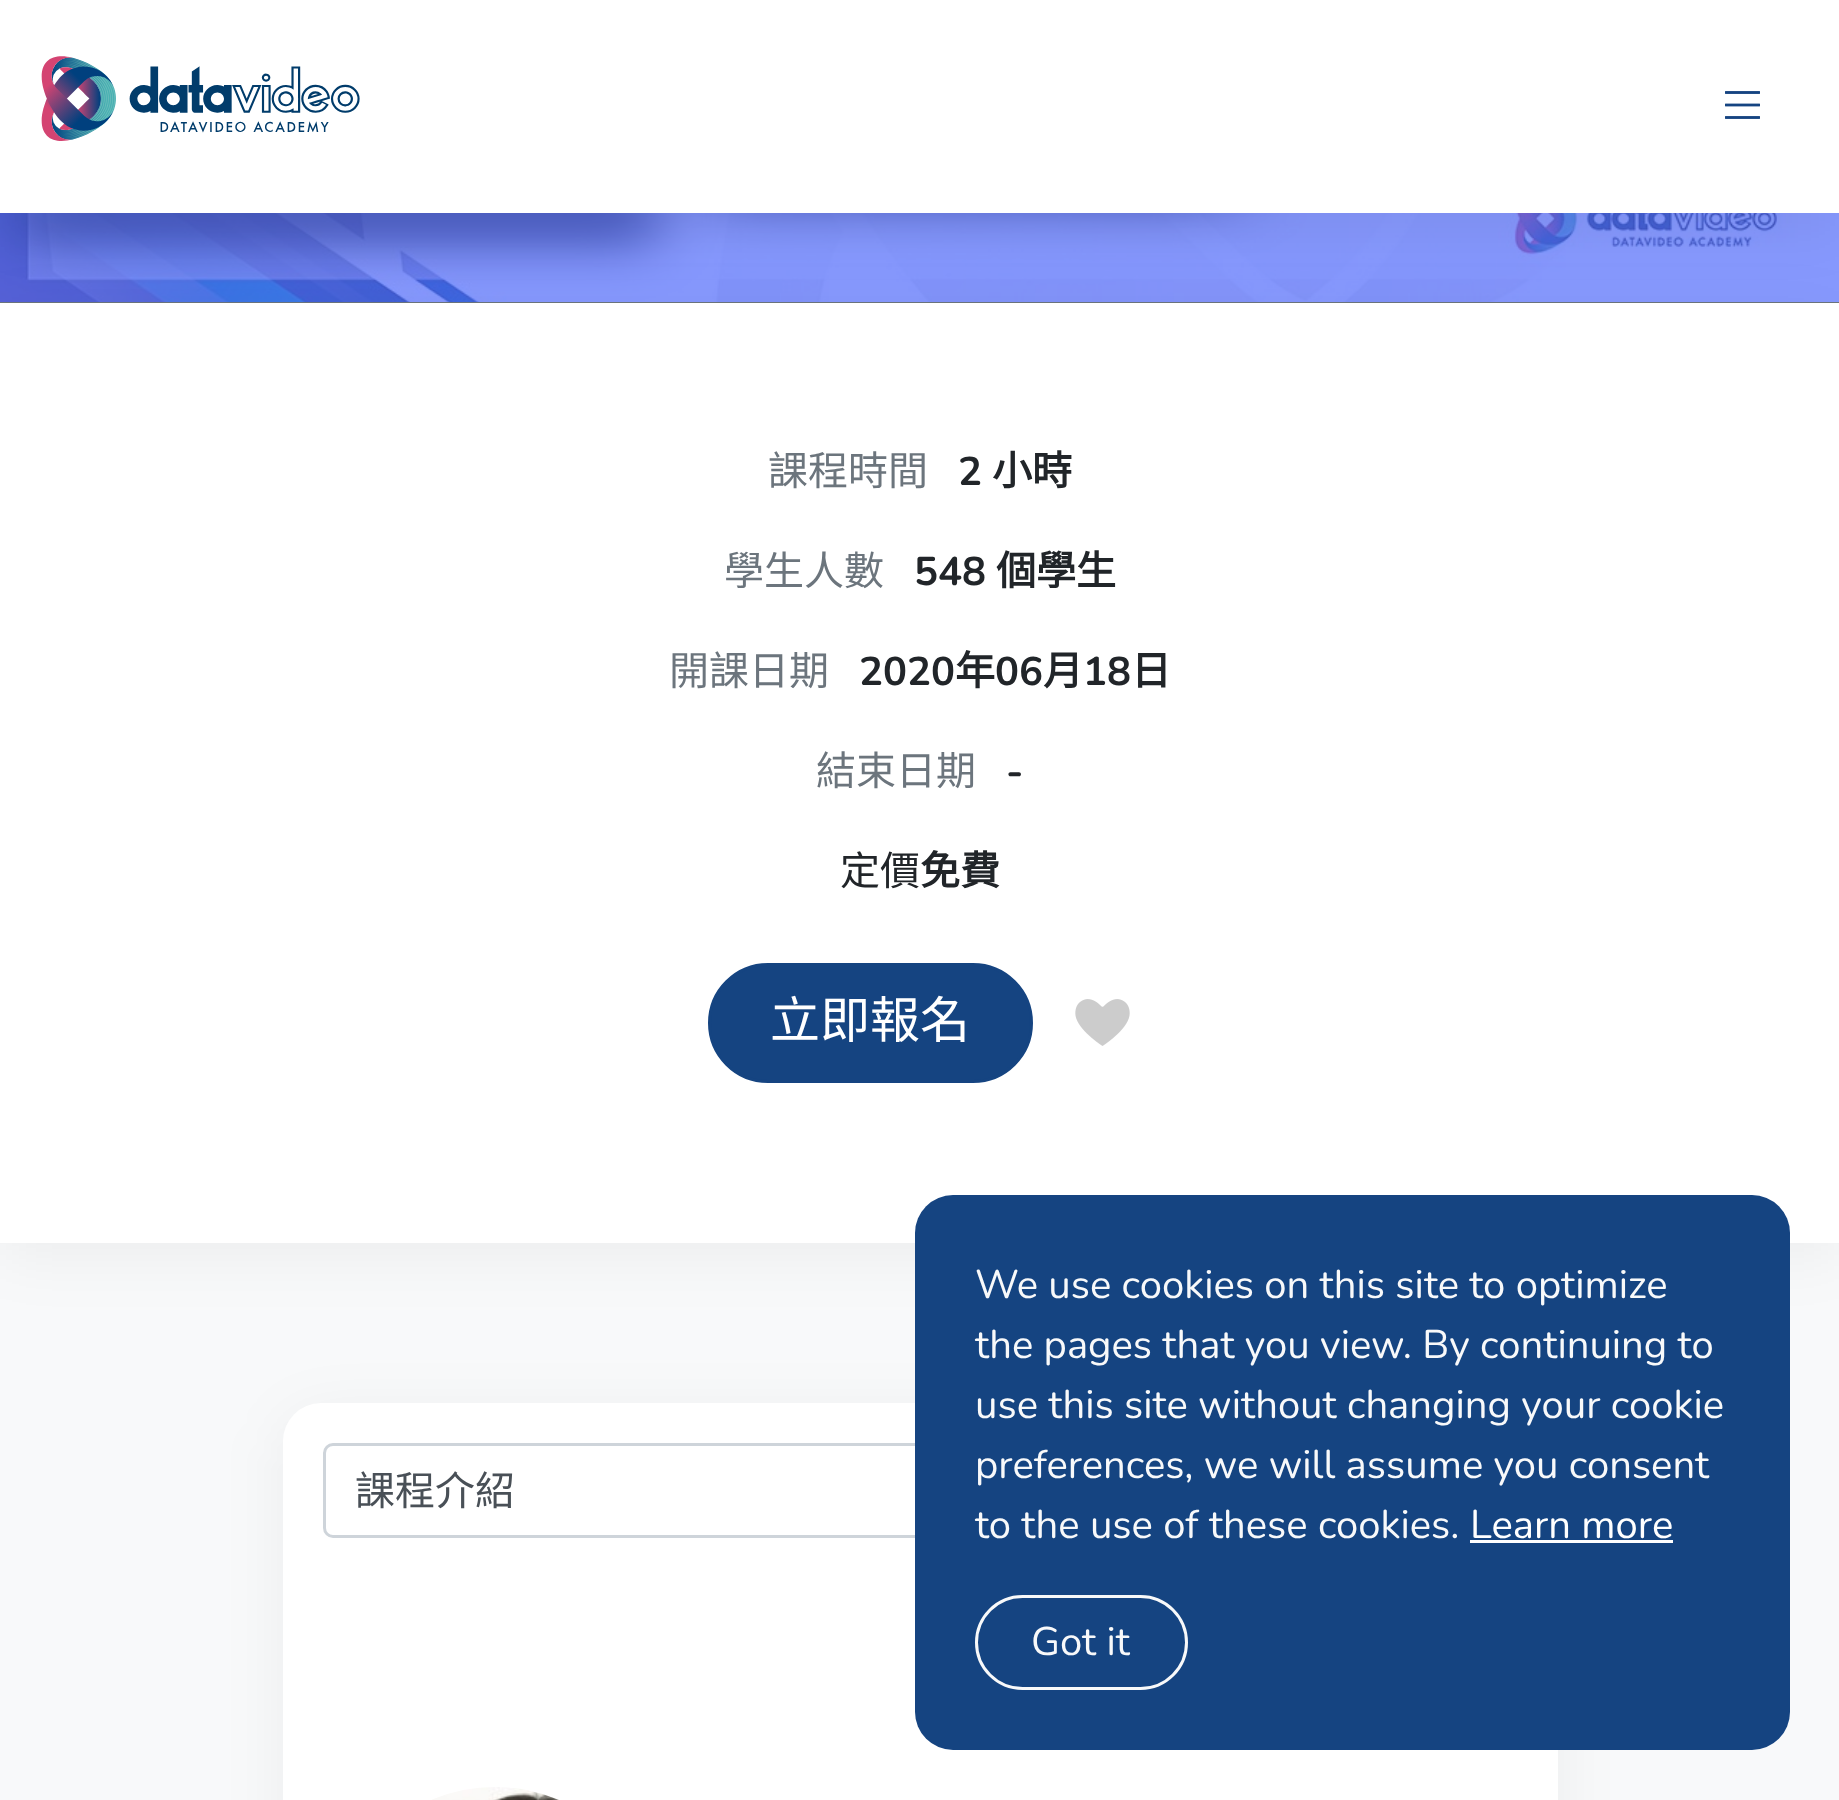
<!DOCTYPE html>
<meta charset="utf-8">
<style>body { margin: 0 } canvas { display: block }</style>
<canvas id="canvas" width="1839" height="1800"></canvas>
<script type="module">
  const canvas = document.getElementById("canvas");
  const g = canvas.getContext("2d");
  g.miterLimit = 4;
  g.fontKerning = "normal";
  function drawText(s, x, y, [font, color]) {
    g.font = font;
    g.fillStyle = color;
    g.fillText(s, x, y);
  }
  function fillBox(x, y, w, h, color) {
    g.fillStyle = color;
    g.fillRect(x, y, w, h);
  }
  function fillRounded(x, y, w, h, r, color) {
    g.fillStyle = color;
    g.beginPath();
    g.roundRect(x, y, w, h, r);
    g.fill();
  }
  async function drawPicture(src, x, y, w, h) {
    const img = new Image();
    img.src = src;
    await img.decode();
    g.drawImage(img, x, y, w, h);
  }

  const s1 = ["40px Noto Sans CJK TC", "#6C757D"];
  const s2 = ["bold 40px Nunito", "#212529"];
  const s3 = ["bold 40px Noto Sans CJK TC", "#212529"];
  const s4 = ["40px Noto Sans CJK TC", "#212529"];
  const s5 = ["50px Noto Sans CJK TC", "#FFFFFF"];
  const s6 = ["40px Noto Sans CJK TC", "#495057"];
  const s7 = ["40px Nunito", "#F8F9FA"];
  const s8 = ["40px Nunito", "#FFFFFF"];

  fillBox(0, 0, 1839, 1800, "#F8F9FA");
  fillBox(0, 302, 1839, 1, "#6C757D");
  await drawPicture("pic3.png", 0, 213, 1839, 89);
  g.fillStyle = "rgba(0, 0, 0, 0.05)";
  g.filter = "blur(31px)";
  g.beginPath();
  g.rect(0, 315, 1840, 940);
  g.fill();
  g.filter = "none";
  fillBox(0, 303, 1839, 940, "#FFFFFF");
  g.fillStyle = "rgba(0, 0, 0, 0.05)";
  g.filter = "blur(25px)";
  g.beginPath();
  g.rect(0, 25, 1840, 213);
  g.fill();
  g.filter = "none";
  fillBox(0, 0, 1839, 213, "#FFFFFF");
  await drawPicture("pic1.png", 41, 56, 319, 85);
  await drawPicture("pic2.png", 1725, 91, 35, 28);
  drawText("課程時間", 768, 485, s1);
  drawText("2", 958, 485, s2);
  drawText("小時", 992, 485, s3);
  drawText("學生人數", 724, 585, s1);
  drawText("548", 914, 585, s2);
  drawText("個學生", 996, 585, s3);
  drawText("開課日期", 669, 685, s1);
  drawText("2020", 859, 685, s2);
  drawText("年", 955, 685, s3);
  drawText("06", 995, 685, s2);
  drawText("月", 1043, 685, s3);
  drawText("18", 1083, 685, s2);
  drawText("日", 1131, 685, s3);
  drawText("結束日期", 816, 785, s1);
  drawText("-", 1006, 785, s2);
  drawText("定價", 840, 885, s4);
  drawText("免費", 920, 885, s3);
  g.fillStyle = "#154481";
  g.beginPath();
  g.roundRect(709.5, 964.5, 322, 117, 58.5);
  g.fill();
  g.strokeStyle = "#154481";
  g.lineWidth = 3;
  g.stroke();
  drawText("立即報名", 770, 1038, s5);
  await drawPicture("pic4.png", 1075, 999, 55, 47);
  g.fillStyle = "rgba(0, 0, 0, 0.05)";
  g.filter = "blur(31px)";
  g.beginPath();
  g.roundRect(283, 1415, 1275, 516, 38);
  g.fill();
  g.filter = "none";
  fillRounded(283, 1403, 1275, 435, 38, "#FFFFFF");
  g.beginPath();
  g.roundRect(324.5, 1444.5, 1192, 92, 8.5);
  g.strokeStyle = "#CED4DA";
  g.stroke();
  drawText("課程介紹", 355, 1505, s6);
  await drawPicture("pic5.png", 432, 1787, 127, 13);
  fillRounded(915, 1195, 875, 555, 38, "#154481");
  drawText("We use cookies on this site to optimize", 975, 1298, s7);
  drawText("the pages that you view. By continuing to", 975, 1358, s7);
  drawText("use this site without changing your cookie", 975, 1418, s7);
  drawText("preferences, we will assume you consent", 975, 1478, s7);
  drawText("to the use of these cookies.", 975, 1538, s7);
  drawText("Learn more", 1470, 1538, s8);
  fillBox(1470, 1540, 203, 3, "#FFFFFF");
  g.beginPath();
  g.roundRect(976.5, 1596.5, 210, 92, 46);
  g.strokeStyle = "#F8F9FA";
  g.stroke();
  drawText("Got it", 1031, 1655, s7);
</script>
